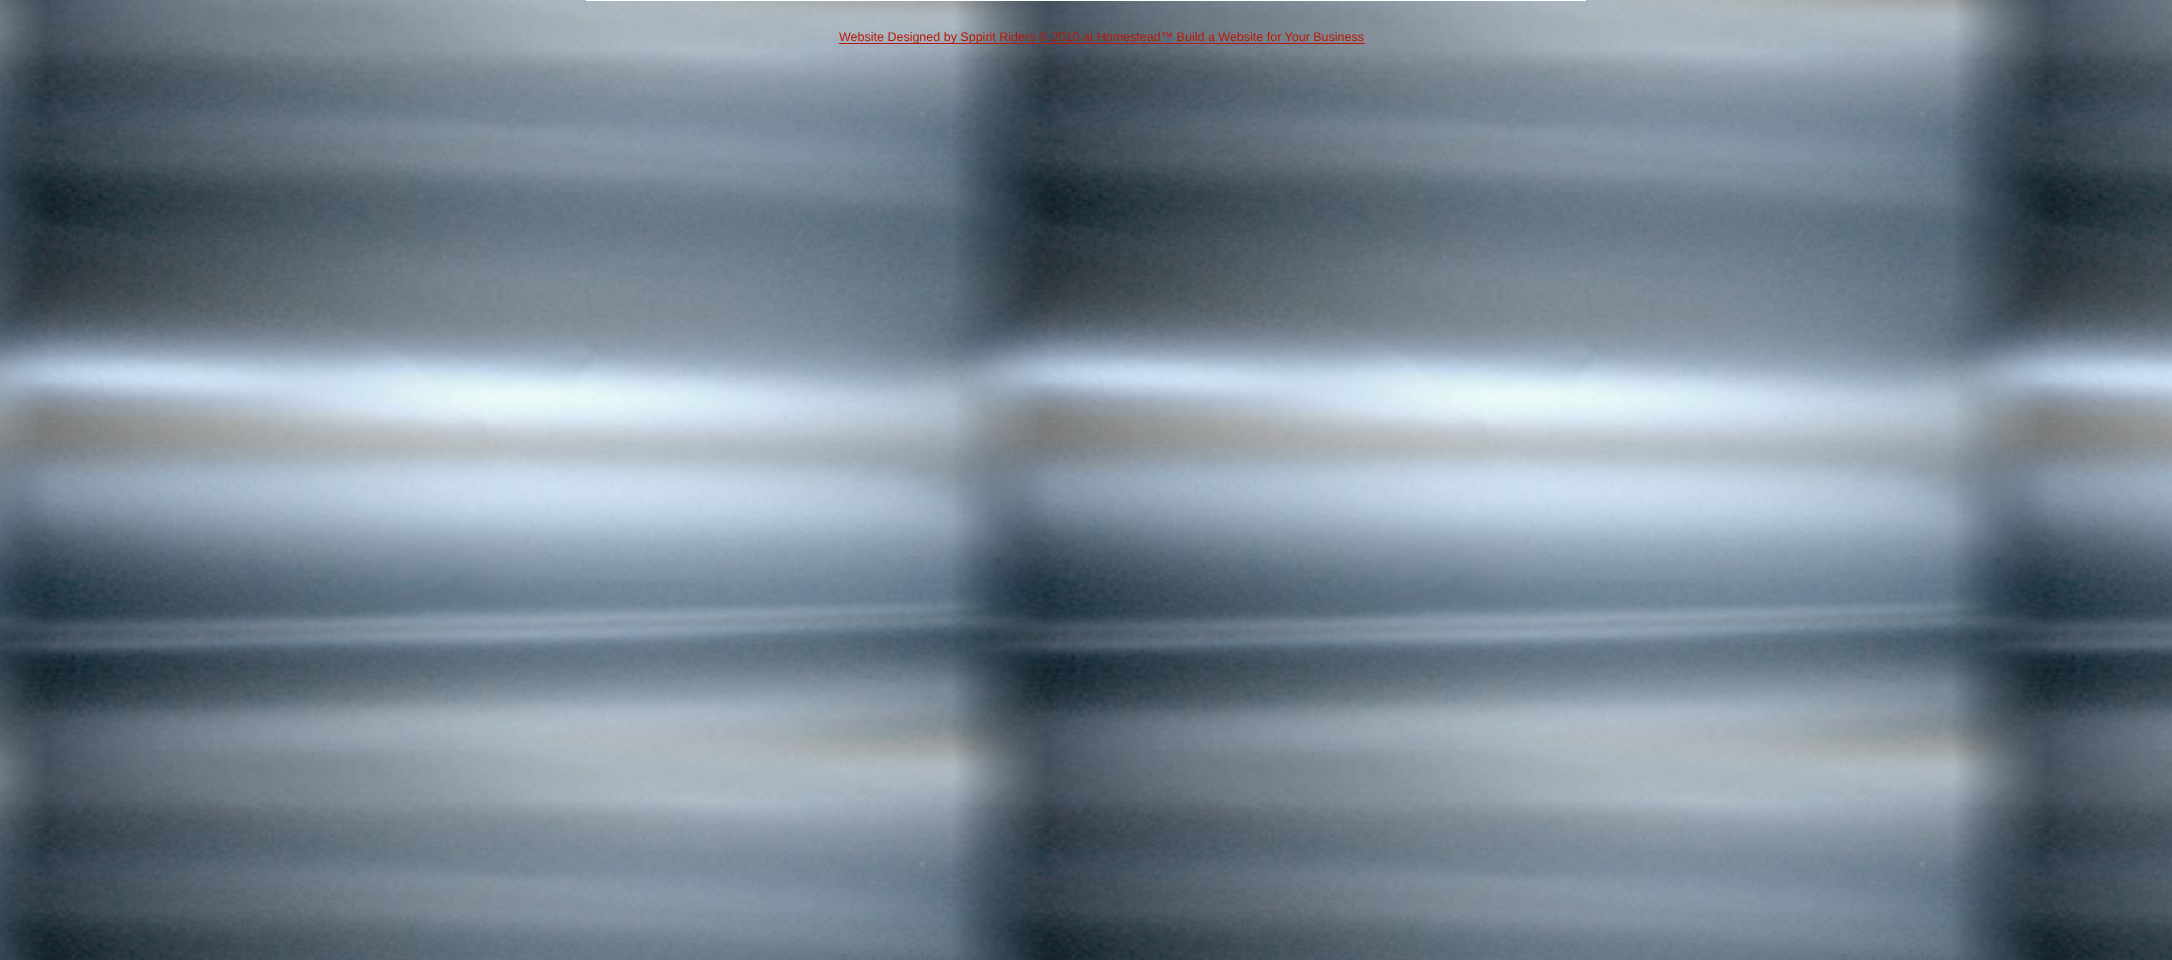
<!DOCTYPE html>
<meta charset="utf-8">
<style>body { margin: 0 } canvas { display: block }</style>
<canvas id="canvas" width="2172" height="960"></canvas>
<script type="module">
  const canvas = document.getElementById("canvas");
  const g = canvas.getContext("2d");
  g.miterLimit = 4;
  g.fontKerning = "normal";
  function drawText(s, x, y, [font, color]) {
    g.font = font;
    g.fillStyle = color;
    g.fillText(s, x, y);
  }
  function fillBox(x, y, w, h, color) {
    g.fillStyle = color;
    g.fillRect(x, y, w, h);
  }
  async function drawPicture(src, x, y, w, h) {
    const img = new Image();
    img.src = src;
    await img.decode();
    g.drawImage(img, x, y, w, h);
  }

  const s1 = ["12.5px Liberation Sans", "#B91806"];

  fillBox(0, 0, 2172, 960, "#FFFFFF");
  await drawPicture("pic1.png", 0, 0, 2172, 960);
  fillBox(586, 0, 1000, 1, "#FFFFFF");
  fillBox(839, 43, 526, 1, "#B91806");
  drawText("Website Designed by Sppirit Riders © 2010 at Homestead™ Build a Website for Your Business", 839, 41, s1);
</script>
